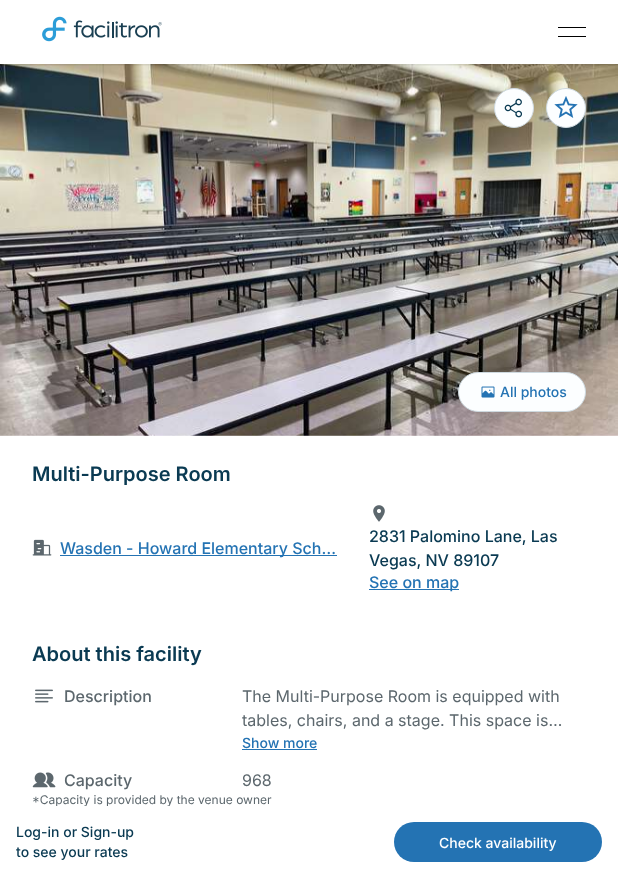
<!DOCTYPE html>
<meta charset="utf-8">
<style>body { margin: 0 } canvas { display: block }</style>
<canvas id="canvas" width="618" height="878"></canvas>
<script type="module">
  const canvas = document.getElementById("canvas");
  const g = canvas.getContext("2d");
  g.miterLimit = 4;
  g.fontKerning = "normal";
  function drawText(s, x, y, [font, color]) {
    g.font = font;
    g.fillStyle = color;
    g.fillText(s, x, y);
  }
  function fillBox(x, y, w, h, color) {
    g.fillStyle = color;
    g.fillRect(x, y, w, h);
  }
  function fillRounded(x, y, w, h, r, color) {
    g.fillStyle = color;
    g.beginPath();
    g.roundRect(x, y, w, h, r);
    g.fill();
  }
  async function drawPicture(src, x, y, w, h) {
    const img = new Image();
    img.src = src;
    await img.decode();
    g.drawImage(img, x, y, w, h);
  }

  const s1 = ["500 14px Inter", "#2473B3"];
  const s2 = ["600 20px Inter", "#0A3A52"];
  const s3 = ["500 16px Inter", "#2473B3"];
  const s4 = ["500 16px Inter", "#0A3A52"];
  const s5 = ["500 16px Inter", "#5C676D"];
  const s6 = ["16px Inter", "#5C676D"];
  const s7 = ["12px Inter", "#5C676D"];
  const s8 = ["500 14px Inter", "#0A3A52"];
  const s9 = ["500 14px Inter", "#FFFFFF"];

  fillBox(0, 0, 618, 878, "#FFFFFF");
  await drawPicture("pic2.png", 0, 64, 618, 372);
  g.save();
  g.beginPath();
  g.rect(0, 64, 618, 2);
  g.clip();
  g.fillStyle = "rgba(0, 0, 0, 0.12)";
  g.filter = "blur(1px)";
  g.beginPath();
  g.rect(0, 1, 618, 64);
  g.fill();
  g.filter = "none";
  g.restore();
  await drawPicture("pic1.png", 42, 16, 120, 26);
  fillBox(558, 27, 28, 1, "#000000");
  fillBox(558, 36, 28, 1, "#000000");
  g.fillStyle = "#FCFEFF";
  g.beginPath();
  g.arc(514, 108, 19.5, 0, Math.PI * 2);
  g.fill();
  g.strokeStyle = "#CED9DF";
  g.stroke();
  await drawPicture("pic3.png", 504, 98, 18, 20);
  g.beginPath();
  g.arc(566, 108, 19.5, 0, Math.PI * 2);
  g.fill();
  g.stroke();
  await drawPicture("pic4.png", 554, 96, 24, 22);
  g.beginPath();
  g.roundRect(458.5, 372.5, 127, 39, 19.5);
  g.fill();
  g.stroke();
  await drawPicture("pic5.png", 481, 386, 14, 12);
  drawText("All photos", 500, 397, s1);
  drawText("Multi-Purpose Room", 32, 481, s2);
  await drawPicture("pic6.png", 32, 539, 20, 17);
  fillBox(60, 555, 277, 1, "#2473B3");
  drawText("Wasden - Howard Elementary Sch…", 60, 554, s3);
  await drawPicture("pic7.png", 373, 505, 12, 17);
  drawText("2831 Palomino Lane, Las", 369, 542, s4);
  drawText("Vegas, NV 89107", 369, 566, s4);
  fillBox(369, 589, 90, 1, "#2473B3");
  drawText("See on map", 369, 588, s3);
  drawText("About this facility", 32, 661, s2);
  await drawPicture("pic8.png", 35, 689, 18, 14);
  drawText("Description", 64, 702, s5);
  drawText("The Multi-Purpose Room is equipped with", 242, 702, s6);
  drawText("tables, chairs, and a stage. This space is…", 242, 726, s6);
  drawText("Show more", 242, 748, s1);
  fillBox(242, 749, 75, 1, "#2473B3");
  await drawPicture("pic9.png", 32, 772, 24, 16);
  drawText("Capacity", 64, 786, s5);
  drawText("968", 242, 786, s6);
  drawText("*Capacity is provided by the venue owner", 32, 804, s7);
  fillBox(56, 806, 114, 1, "#FFFFFF");
  drawText("Log-in or Sign-up", 16, 837, s8);
  drawText("to see your rates", 16, 857, s8);
  fillRounded(394, 822, 208, 40, 20, "#2473B3");
  drawText("Check availability", 439, 848, s9);
</script>
